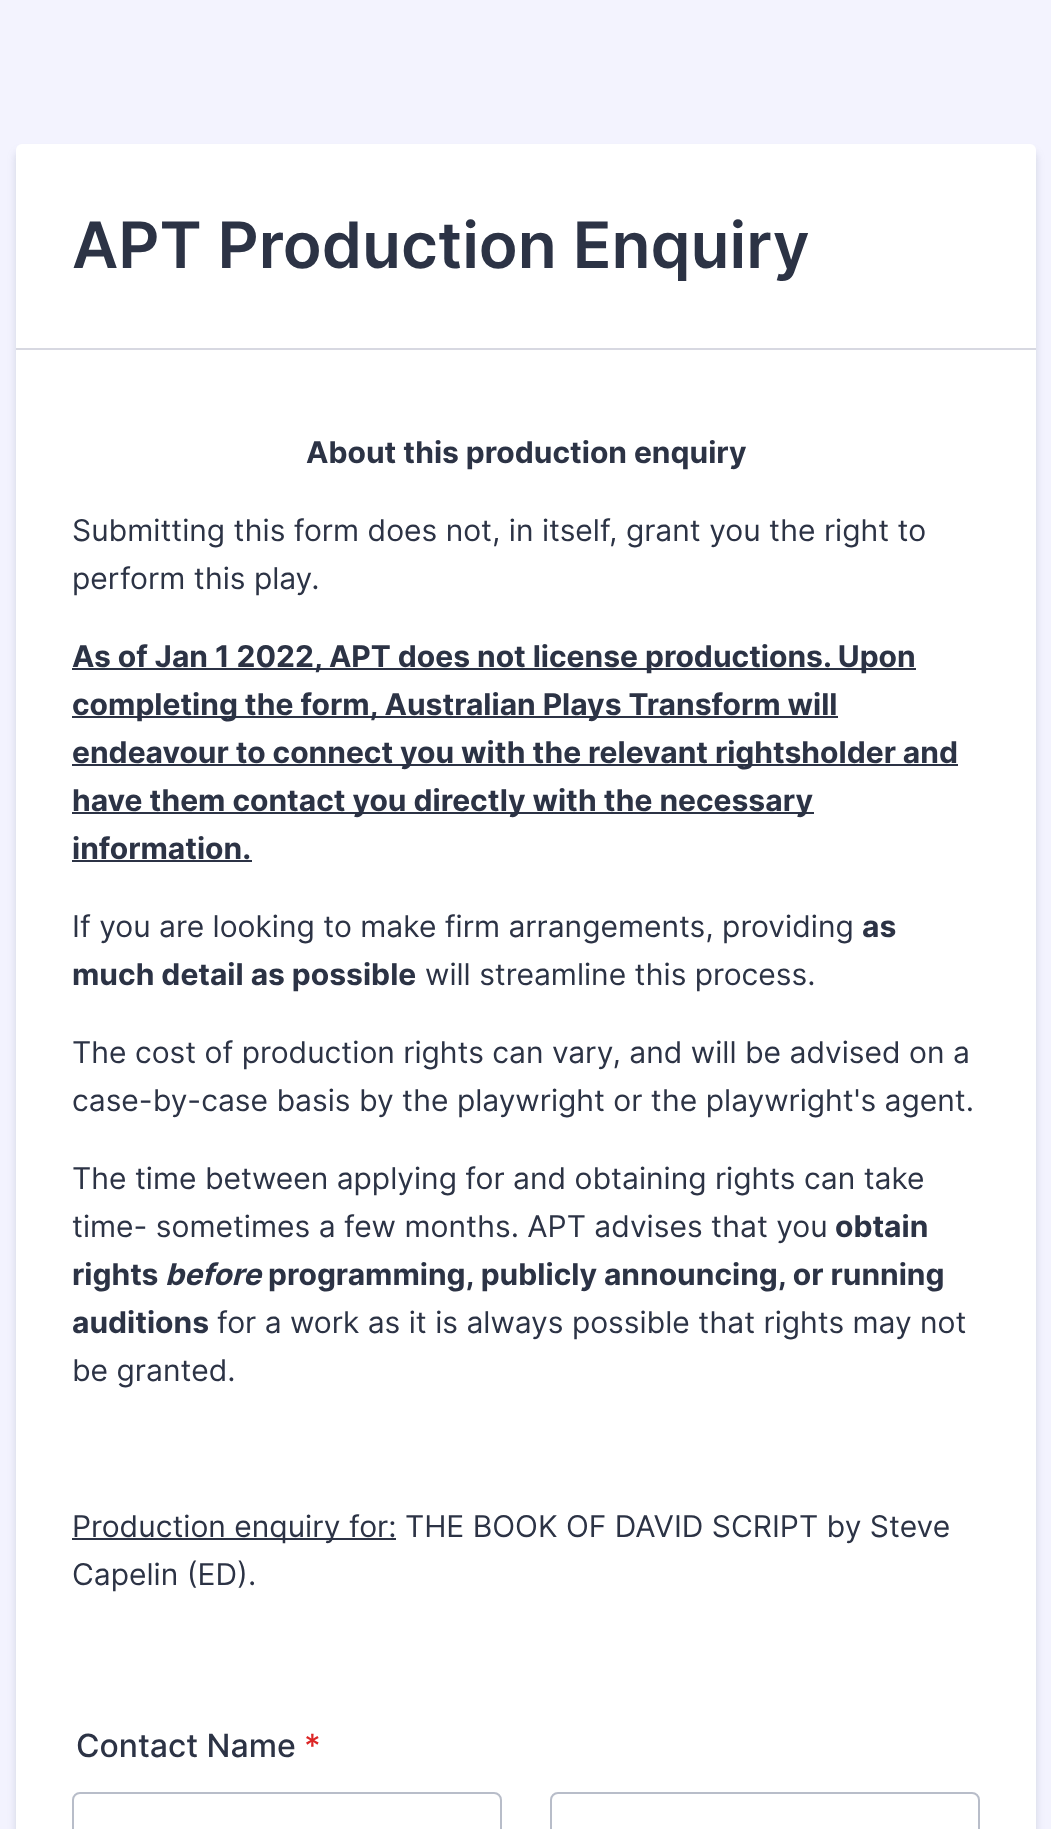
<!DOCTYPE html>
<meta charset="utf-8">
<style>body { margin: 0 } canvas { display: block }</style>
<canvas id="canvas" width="1051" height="1829"></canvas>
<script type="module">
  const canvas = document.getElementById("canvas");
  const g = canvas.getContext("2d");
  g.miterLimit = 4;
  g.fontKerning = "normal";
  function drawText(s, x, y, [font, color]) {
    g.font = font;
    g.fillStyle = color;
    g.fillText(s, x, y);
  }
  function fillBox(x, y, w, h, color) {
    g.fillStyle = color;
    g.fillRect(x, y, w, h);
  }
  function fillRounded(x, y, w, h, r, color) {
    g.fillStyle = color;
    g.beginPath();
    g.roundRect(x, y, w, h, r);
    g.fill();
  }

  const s1 = ["600 64px Inter", "#2C3345"];
  const s2 = ["bold 30px Inter", "#2C3345"];
  const s3 = ["30px Inter", "#2C3345"];
  const s4 = ["italic bold 30px Inter", "#2C3345"];
  const s5 = ["500 32px Inter", "#2C3345"];
  const s6 = ["500 32px Inter", "#DC2626"];

  fillBox(0, 0, 1051, 1829, "#F3F3FE");
  g.fillStyle = "rgba(87, 100, 126, 0.21)";
  g.filter = "blur(4px)";
  g.beginPath();
  g.roundRect(16, 152, 1020, 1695, 6);
  g.fill();
  g.filter = "none";
  fillRounded(16, 144, 1020, 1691, 6, "#FFFFFF");
  fillBox(16, 348, 1020, 2, "#D7D8E1");
  drawText("APT Production Enquiry", 72, 268, s1);
  drawText("About this production enquiry", 306, 463, s2);
  drawText("Submitting this form does not, in itself, grant you the right to", 72, 541, s3);
  drawText("perform this play.", 72, 589, s3);
  fillBox(72, 668, 844, 2, "#2C3345");
  drawText("As of Jan 1 2022, APT does not license productions. Upon", 72, 667, s2);
  fillBox(72, 716, 766, 2, "#2C3345");
  drawText("completing the form, Australian Plays Transform will", 72, 715, s2);
  fillBox(72, 764, 886, 2, "#2C3345");
  drawText("endeavour to connect you with the relevant rightsholder and", 72, 763, s2);
  fillBox(72, 812, 742, 2, "#2C3345");
  drawText("have them contact you directly with the necessary", 72, 811, s2);
  drawText("information.", 72, 859, s2);
  fillBox(72, 860, 180, 2, "#2C3345");
  drawText("If you are looking to make firm arrangements, providing", 72, 937, s3);
  drawText("as", 862, 937, s2);
  drawText("much detail as possible", 72, 985, s2);
  drawText("will streamline this process.", 425, 985, s3);
  drawText("The cost of production rights can vary, and will be advised on a", 72, 1063, s3);
  drawText("case-by-case basis by the playwright or the playwright's agent.", 72, 1111, s3);
  drawText("The time between applying for and obtaining rights can take", 72, 1189, s3);
  drawText("time- sometimes a few months. APT advises that you", 72, 1237, s3);
  drawText("obtain", 835, 1237, s2);
  drawText("rights", 72, 1285, s2);
  drawText("before", 165, 1285, s4);
  drawText("programming, publicly announcing, or running", 268, 1285, s2);
  drawText("auditions", 72, 1333, s2);
  drawText("for a work as it is always possible that rights may not", 217, 1333, s3);
  drawText("be granted.", 72, 1381, s3);
  fillBox(72, 1538, 324, 2, "#2C3345");
  drawText("Production enquiry for: THE BOOK OF DAVID SCRIPT by Steve", 72, 1537, s3);
  drawText("Capelin (ED).", 72, 1585, s3);
  drawText("Contact Name", 76, 1757, s5);
  drawText("*", 304, 1757, s6);
  g.beginPath();
  g.roundRect(73, 1793, 428, 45, 7);
  g.strokeStyle = "#B8BDC9";
  g.lineWidth = 2;
  g.stroke();
  g.beginPath();
  g.roundRect(551, 1793, 428, 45, 7);
  g.stroke();
</script>
